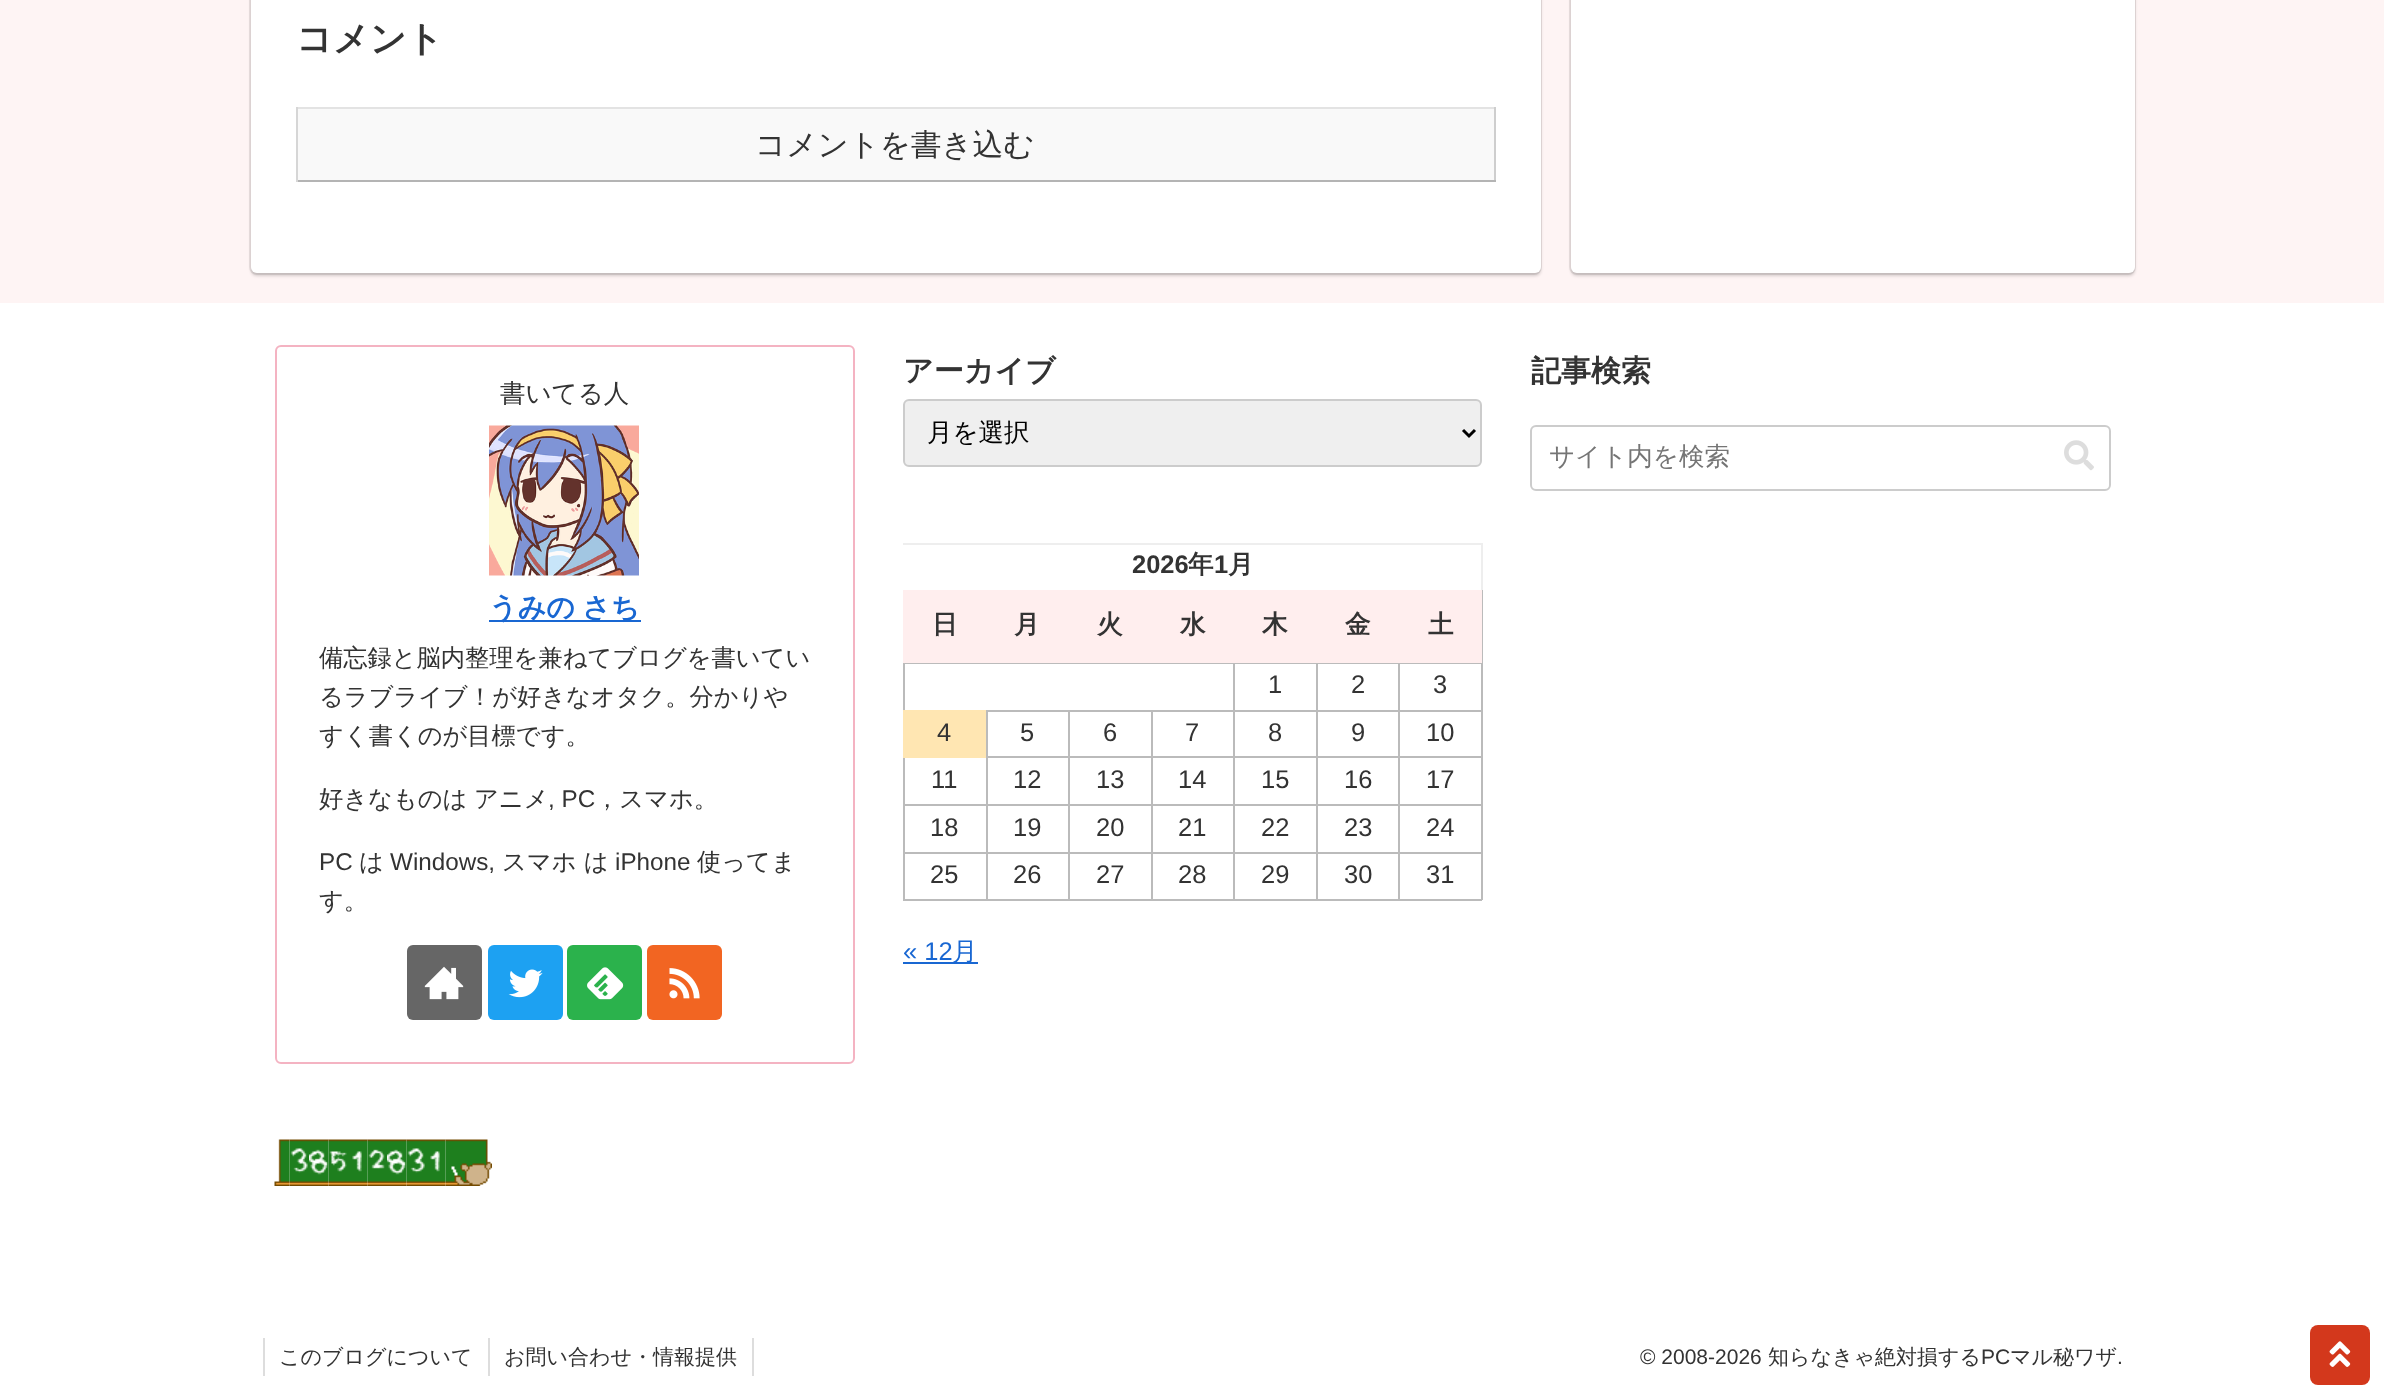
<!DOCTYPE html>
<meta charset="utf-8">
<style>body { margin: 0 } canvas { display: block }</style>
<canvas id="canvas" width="2384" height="1399"></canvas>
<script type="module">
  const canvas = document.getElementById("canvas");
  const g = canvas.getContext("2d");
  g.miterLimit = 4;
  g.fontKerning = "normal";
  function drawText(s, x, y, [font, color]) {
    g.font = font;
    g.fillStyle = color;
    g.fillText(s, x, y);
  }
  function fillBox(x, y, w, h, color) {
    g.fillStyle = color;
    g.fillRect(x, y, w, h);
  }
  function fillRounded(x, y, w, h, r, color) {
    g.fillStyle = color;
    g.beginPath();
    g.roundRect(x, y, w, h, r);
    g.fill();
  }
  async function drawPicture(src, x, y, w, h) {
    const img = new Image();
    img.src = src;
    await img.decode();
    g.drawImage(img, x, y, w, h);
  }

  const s1 = ["bold 36px WenQuanYi Zen Hei", "#333333"];
  const s2 = ["500 30.5px WenQuanYi Zen Hei", "#333333"];
  const s3 = ["500 25.5px WenQuanYi Zen Hei", "#333333"];
  const s4 = ["bold 28px WenQuanYi Zen Hei", "#1967D2"];
  const s5 = ["500 24.25px WenQuanYi Zen Hei", "#333333"];
  const s6 = ["24.25px Liberation Sans", "#333333"];
  const s7 = ["bold 30px WenQuanYi Zen Hei", "#333333"];
  const s8 = ["500 25.5px WenQuanYi Zen Hei", "#000000"];
  const s9 = ["bold 25.5px Liberation Sans", "#333333"];
  const s10 = ["bold 25.5px WenQuanYi Zen Hei", "#333333"];
  const s11 = ["25.5px Liberation Sans", "#333333"];
  const s12 = ["25.5px Liberation Sans", "#1967D2"];
  const s13 = ["500 25.5px WenQuanYi Zen Hei", "#1967D2"];
  const s14 = ["500 25.5px WenQuanYi Zen Hei", "#757575"];
  const s15 = ["500 21px WenQuanYi Zen Hei", "#333333"];
  const s16 = ["21px Liberation Sans", "#333333"];

  fillBox(0, 0, 2384, 1399, "#FEF4F4");
  g.beginPath();
  g.roundRect(250, -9, 1291, 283, 7);
  g.strokeStyle = "#EAE0E0";
  g.lineWidth = 2;
  g.stroke();
  g.fillStyle = "rgba(0, 0, 0, 0.16)";
  g.filter = "blur(1.5px)";
  g.beginPath();
  g.roundRect(251, -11, 1290, 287, 6);
  g.fill();
  g.filter = "none";
  fillRounded(251, -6, 1290, 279, 6, "#FFFFFF");
  drawText("コメント", 296, 51, s1);
  fillBox(298, 109, 1196, 71, "#F9F9F9");
  fillBox(296, 107, 1200, 2, "#E3E3E3");
  fillBox(1494, 107, 2, 75, "#CECECE");
  fillBox(296, 180, 1200, 2, "#B4B4B4");
  fillBox(296, 107, 2, 75, "#D6D6D6");
  drawText("コメントを書き込む", 755, 155, s2);
  g.beginPath();
  g.roundRect(1570, -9, 565, 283, 7);
  g.stroke();
  g.fillStyle = "rgba(0, 0, 0, 0.16)";
  g.filter = "blur(1.5px)";
  g.beginPath();
  g.roundRect(1571, -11, 564, 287, 6);
  g.fill();
  g.filter = "none";
  fillRounded(1571, -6, 564, 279, 6, "#FFFFFF");
  fillBox(0, 303, 2384, 1096, "#FFFFFF");
  g.beginPath();
  g.roundRect(276, 346, 578, 717, 5);
  g.strokeStyle = "#F4B3C2";
  g.stroke();
  drawText("書いてる人", 500, 402, s3);
  await drawPicture("pic1.png", 489, 425, 150, 151);
  fillBox(489, 620, 152, 2, "#1967D2");
  g.wordSpacing = "-1px";
  drawText("うみの さち", 489, 617, s4);
  g.wordSpacing = "0px";
  drawText("備忘録と脳内整理を兼ねてブログを書いてい", 319, 666, s5);
  drawText("るラブライブ！が好きなオタク。分かりや", 319, 705, s5);
  drawText("すく書くのが目標です。", 319, 744, s5);
  drawText("好きなものは", 319, 807, s5);
  drawText("アニメ", 474, 807, s5);
  drawText(", PC", 548, 807, s6);
  drawText("，スマホ。", 595, 807, s5);
  drawText("PC", 319, 870, s6);
  drawText("は", 359, 870, s5);
  drawText("Windows,", 390, 870, s6);
  drawText("スマホ は", 502, 870, s5);
  drawText("iPhone", 615, 870, s6);
  drawText("使ってま", 697, 870, s5);
  drawText("す。", 319, 909, s5);
  fillRounded(407, 945, 75, 75, 6, "#666666");
  await drawPicture("pic2.png", 424, 966, 40, 34);
  fillRounded(488, 945, 75, 75, 6, "#1DA1F2");
  await drawPicture("pic3.png", 508, 969, 35, 29);
  fillRounded(567, 945, 75, 75, 6, "#2BB24C");
  await drawPicture("pic4.png", 587, 967, 37, 33);
  fillRounded(647, 945, 75, 75, 6, "#F26522");
  await drawPicture("pic5.png", 669, 968, 31, 31);
  await drawPicture("pic6.png", 274, 1139, 16, 47);
  await drawPicture("pic7.png", 289, 1139, 20, 47);
  await drawPicture("pic8.png", 309, 1139, 20, 47);
  await drawPicture("pic9.png", 328, 1139, 20, 47);
  await drawPicture("pic10.png", 348, 1139, 20, 47);
  await drawPicture("pic11.png", 367, 1139, 20, 47);
  await drawPicture("pic8.png", 387, 1139, 20, 47);
  await drawPicture("pic7.png", 406, 1139, 20, 47);
  await drawPicture("pic10.png", 426, 1139, 20, 47);
  await drawPicture("pic12.png", 445, 1139, 47, 47);
  drawText("アーカイブ", 903, 381, s7);
  g.fillStyle = "#EFEFEF";
  g.beginPath();
  g.roundRect(904, 400, 577, 66, 5);
  g.fill();
  g.strokeStyle = "#CCCCCC";
  g.stroke();
  g.beginPath();
  g.moveTo(1463, 430);
  g.lineTo(1469, 436);
  g.lineTo(1475, 430);
  g.strokeStyle = "#000000";
  g.lineWidth = 3;
  g.stroke();
  drawText("月を選択", 927, 441, s8);
  fillBox(903, 543, 579, 2, "#EEEEEE");
  fillBox(1481, 543, 2, 47, "#EEEEEE");
  drawText("2026", 1132, 573, s9);
  drawText("年", 1188, 573, s10);
  drawText("1", 1214, 573, s9);
  drawText("月", 1228, 573, s10);
  fillBox(1398, 663, 84, 1, "#BBBBBB");
  fillBox(1398, 710, 84, 2, "#BBBBBB");
  fillBox(1398, 756, 84, 2, "#BBBBBB");
  fillBox(1398, 804, 84, 2, "#BBBBBB");
  fillBox(1398, 852, 84, 2, "#BBBBBB");
  fillBox(1481, 852, 2, 48, "#BBBBBB");
  fillBox(1398, 899, 84, 2, "#BBBBBB");
  fillBox(1398, 852, 2, 48, "#BBBBBB");
  fillBox(1316, 852, 84, 2, "#BBBBBB");
  fillBox(1398, 804, 2, 50, "#BBBBBB");
  fillBox(1316, 804, 84, 2, "#BBBBBB");
  fillBox(1398, 756, 2, 50, "#BBBBBB");
  fillBox(1316, 756, 84, 2, "#BBBBBB");
  fillBox(1398, 710, 2, 48, "#BBBBBB");
  fillBox(1316, 710, 84, 2, "#BBBBBB");
  fillBox(1398, 662, 2, 49, "#BBBBBB");
  fillBox(1316, 663, 84, 1, "#BBBBBB");
  fillBox(1316, 899, 84, 2, "#BBBBBB");
  fillBox(1316, 852, 2, 48, "#BBBBBB");
  fillBox(1233, 852, 84, 2, "#BBBBBB");
  fillBox(1316, 804, 2, 50, "#BBBBBB");
  fillBox(1233, 804, 84, 2, "#BBBBBB");
  fillBox(1316, 756, 2, 50, "#BBBBBB");
  fillBox(1233, 756, 84, 2, "#BBBBBB");
  fillBox(1316, 710, 2, 48, "#BBBBBB");
  fillBox(1233, 710, 84, 2, "#BBBBBB");
  fillBox(1316, 662, 2, 49, "#BBBBBB");
  fillBox(1233, 663, 84, 1, "#BBBBBB");
  fillBox(1233, 899, 84, 2, "#BBBBBB");
  fillBox(1233, 852, 2, 48, "#BBBBBB");
  fillBox(1151, 852, 84, 2, "#BBBBBB");
  fillBox(1233, 804, 2, 50, "#BBBBBB");
  fillBox(1151, 804, 84, 2, "#BBBBBB");
  fillBox(1233, 756, 2, 50, "#BBBBBB");
  fillBox(1151, 756, 84, 2, "#BBBBBB");
  fillBox(1233, 710, 2, 48, "#BBBBBB");
  fillBox(1151, 710, 84, 2, "#BBBBBB");
  fillBox(1233, 662, 2, 49, "#BBBBBB");
  fillBox(903, 663, 332, 1, "#BBBBBB");
  fillBox(903, 662, 2, 49, "#BBBBBB");
  fillBox(1481, 804, 2, 50, "#BBBBBB");
  fillBox(1481, 756, 2, 50, "#BBBBBB");
  fillBox(1481, 710, 2, 48, "#BBBBBB");
  fillBox(1481, 662, 2, 49, "#BBBBBB");
  fillBox(903, 590, 579, 73, "#FFEEEE");
  drawText("日", 932, 633, s10);
  drawText("月", 1014, 633, s10);
  drawText("火", 1097, 633, s10);
  drawText("水", 1180, 633, s10);
  drawText("木", 1262, 633, s10);
  drawText("金", 1345, 633, s10);
  fillBox(1482, 590, 1, 73, "#BBBBBB");
  drawText("土", 1428, 633, s10);
  drawText("1", 1268, 693, s11);
  drawText("2", 1351, 693, s11);
  drawText("3", 1433, 693, s11);
  fillBox(1151, 899, 84, 2, "#BBBBBB");
  fillBox(1151, 852, 2, 48, "#BBBBBB");
  fillBox(1068, 852, 84, 2, "#BBBBBB");
  fillBox(1151, 804, 2, 50, "#BBBBBB");
  fillBox(1068, 804, 84, 2, "#BBBBBB");
  fillBox(1068, 899, 84, 2, "#BBBBBB");
  fillBox(1068, 852, 2, 48, "#BBBBBB");
  fillBox(986, 852, 84, 2, "#BBBBBB");
  fillBox(1068, 804, 2, 50, "#BBBBBB");
  fillBox(986, 804, 84, 2, "#BBBBBB");
  fillBox(986, 899, 84, 2, "#BBBBBB");
  fillBox(986, 852, 2, 48, "#BBBBBB");
  fillBox(903, 852, 84, 2, "#BBBBBB");
  fillBox(986, 804, 2, 50, "#BBBBBB");
  fillBox(903, 804, 84, 2, "#BBBBBB");
  fillBox(903, 899, 84, 2, "#BBBBBB");
  fillBox(903, 852, 2, 48, "#BBBBBB");
  fillBox(903, 756, 2, 98, "#BBBBBB");
  fillBox(903, 710, 83, 48, "#FFE6B2");
  drawText("4", 937, 741, s11);
  fillBox(1151, 756, 2, 50, "#BBBBBB");
  fillBox(1068, 756, 84, 2, "#BBBBBB");
  fillBox(1151, 710, 2, 48, "#BBBBBB");
  fillBox(1068, 710, 84, 2, "#BBBBBB");
  fillBox(1068, 756, 2, 50, "#BBBBBB");
  fillBox(986, 756, 84, 2, "#BBBBBB");
  fillBox(1068, 710, 2, 48, "#BBBBBB");
  fillBox(986, 710, 84, 2, "#BBBBBB");
  fillBox(986, 756, 2, 50, "#BBBBBB");
  fillBox(986, 710, 2, 48, "#BBBBBB");
  drawText("5", 1020, 741, s11);
  drawText("6", 1103, 741, s11);
  drawText("7", 1185, 741, s11);
  drawText("8", 1268, 741, s11);
  drawText("9", 1351, 741, s11);
  drawText("10", 1426, 741, s11);
  drawText("11", 931, 788, s11);
  drawText("12", 1013, 788, s11);
  drawText("13", 1096, 788, s11);
  drawText("14", 1178, 788, s11);
  drawText("15", 1261, 788, s11);
  drawText("16", 1344, 788, s11);
  drawText("17", 1426, 788, s11);
  drawText("18", 930, 836, s11);
  drawText("19", 1013, 836, s11);
  drawText("20", 1096, 836, s11);
  drawText("21", 1178, 836, s11);
  drawText("22", 1261, 836, s11);
  drawText("23", 1344, 836, s11);
  drawText("24", 1426, 836, s11);
  drawText("25", 930, 883, s11);
  drawText("26", 1013, 883, s11);
  drawText("27", 1096, 883, s11);
  drawText("28", 1178, 883, s11);
  drawText("29", 1261, 883, s11);
  drawText("30", 1344, 883, s11);
  drawText("31", 1426, 883, s11);
  drawText("« 12", 903, 960, s12);
  fillBox(903, 962, 75, 2, "#1967D2");
  drawText("月", 952, 960, s13);
  drawText("記事検索", 1531, 381, s7);
  g.beginPath();
  g.roundRect(1531, 426, 579, 64, 5);
  g.strokeStyle = "#CCCCCC";
  g.lineWidth = 2;
  g.stroke();
  drawText("サイト内を検索", 1549, 465, s14);
  await drawPicture("pic13.png", 2064, 440, 30, 31);
  fillBox(263, 1338, 2, 38, "#DDDDDD");
  drawText("このブログについて", 279, 1364, s15);
  fillBox(752, 1338, 2, 38, "#DDDDDD");
  fillBox(488, 1338, 2, 38, "#DDDDDD");
  drawText("お問い合わせ・情報提供", 504, 1364, s15);
  drawText("© 2008-2026", 1640, 1364, s16);
  drawText("知らなきゃ絶対損する", 1768, 1364, s15);
  drawText("PC", 1981, 1364, s16);
  drawText("マル秘ワザ", 2010, 1364, s15);
  drawText(".", 2117, 1364, s16);
  fillRounded(2310, 1325, 60, 60, 8, "#D3381C");
  await drawPicture("pic14.png", 2329, 1341, 22, 26);
</script>
